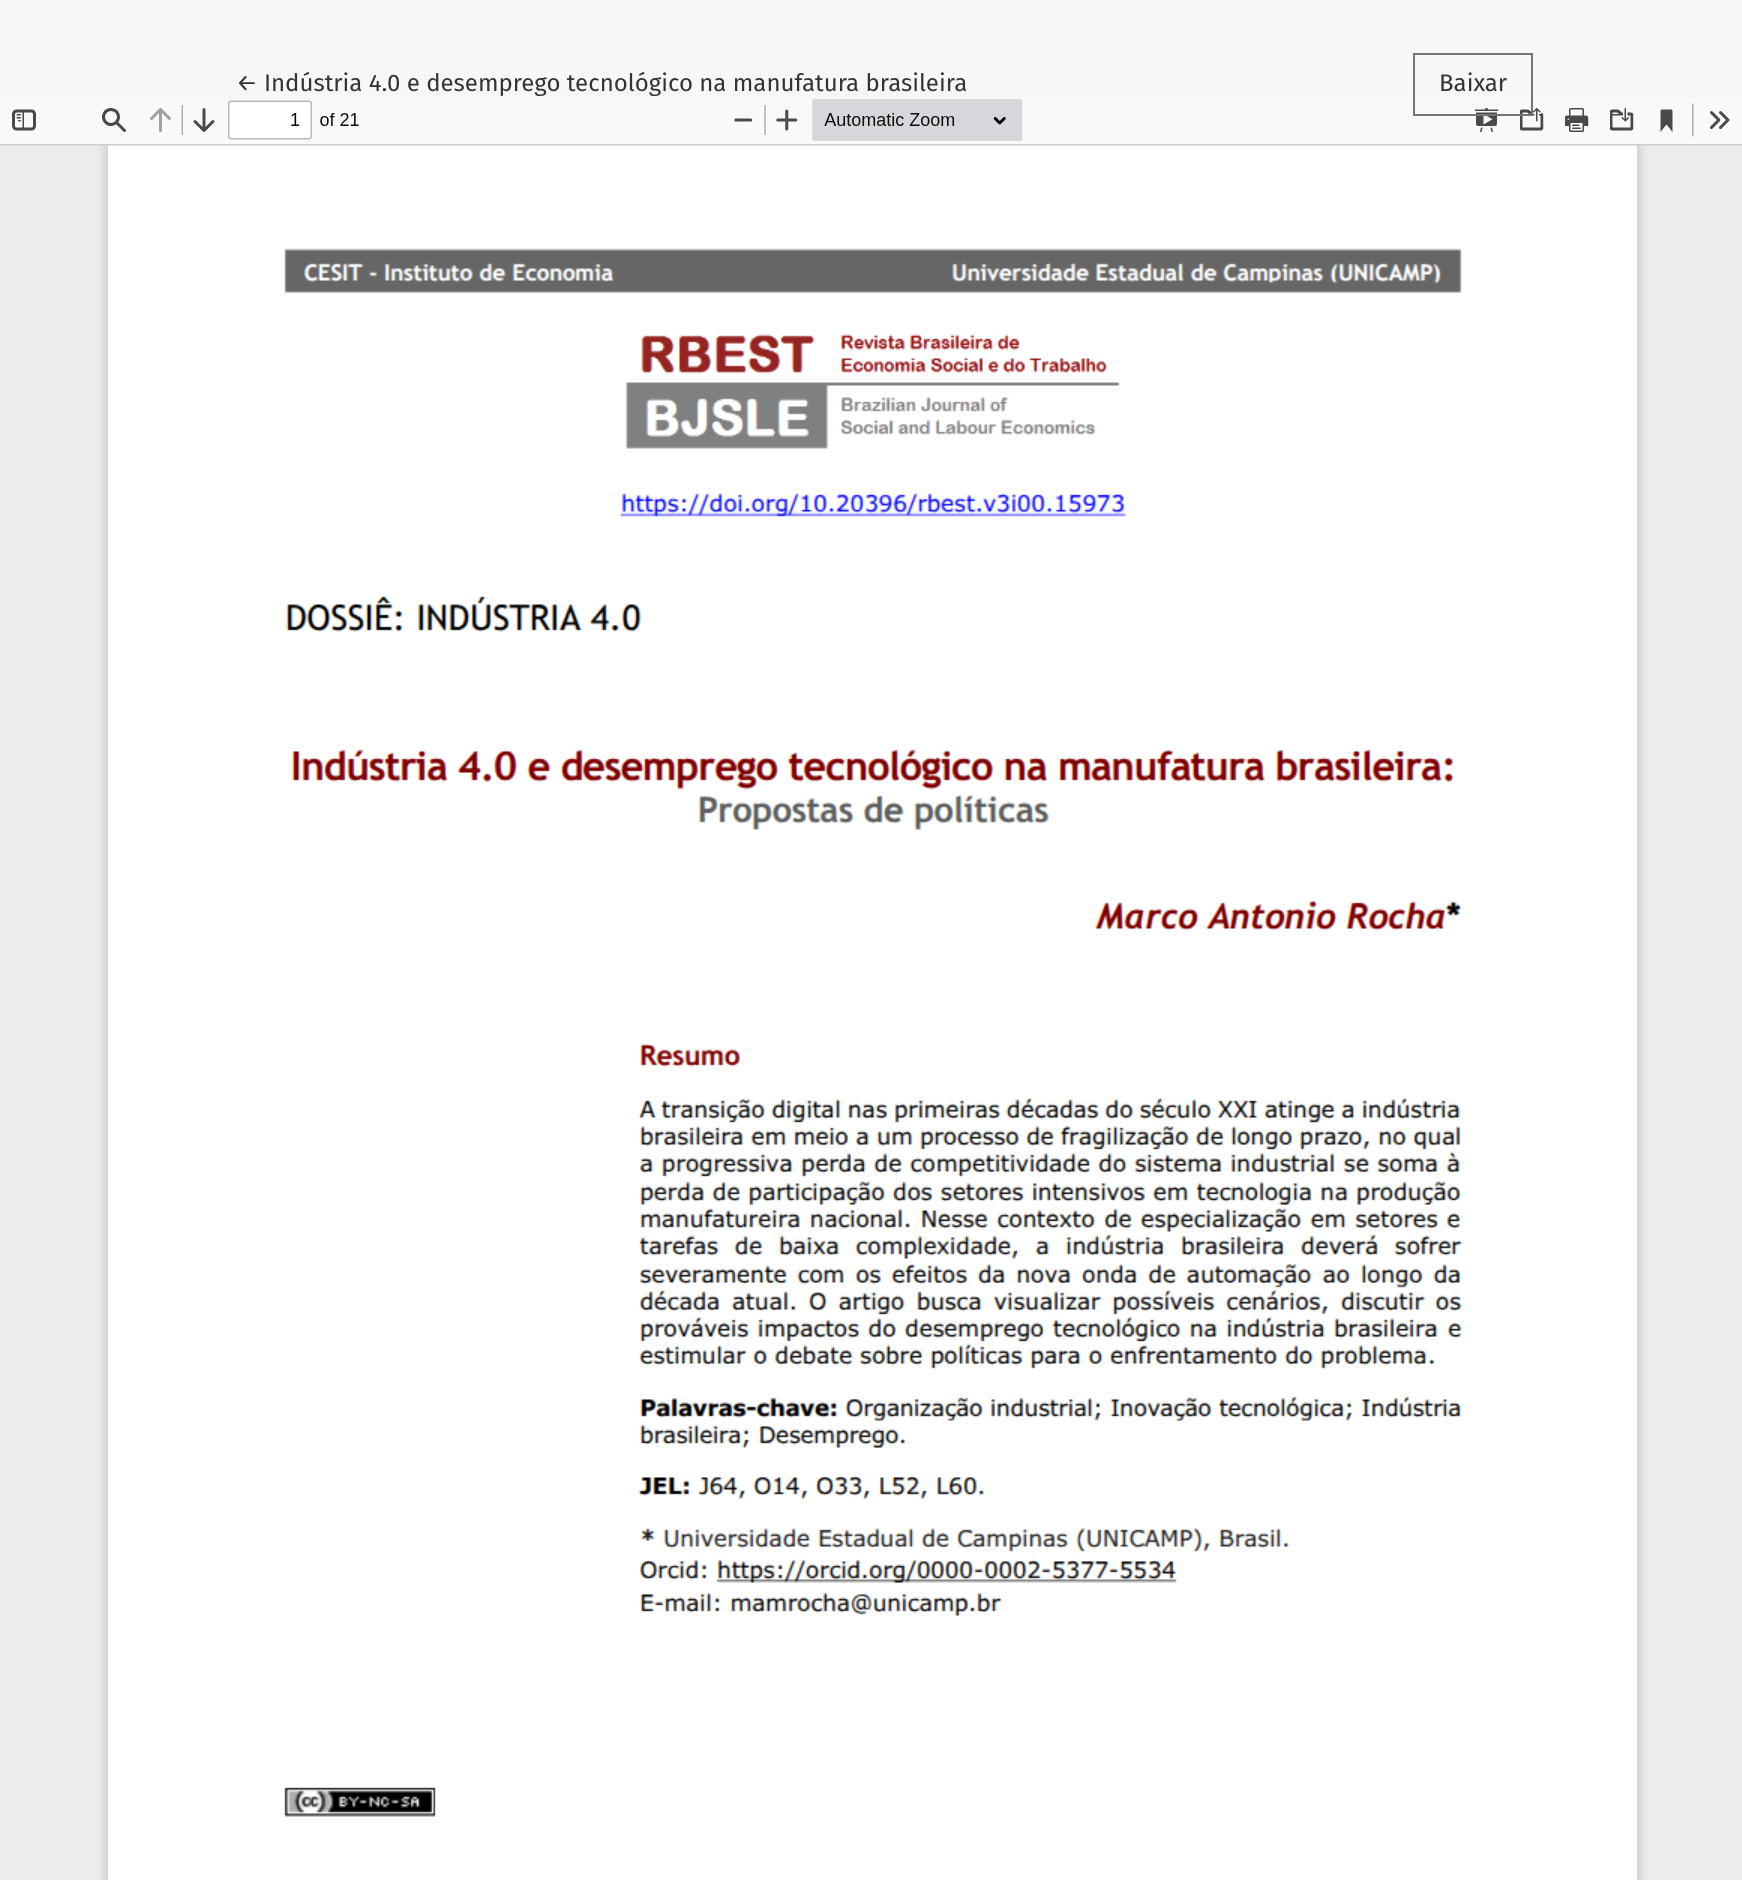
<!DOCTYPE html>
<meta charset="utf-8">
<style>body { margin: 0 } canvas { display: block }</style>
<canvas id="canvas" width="1742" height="1880"></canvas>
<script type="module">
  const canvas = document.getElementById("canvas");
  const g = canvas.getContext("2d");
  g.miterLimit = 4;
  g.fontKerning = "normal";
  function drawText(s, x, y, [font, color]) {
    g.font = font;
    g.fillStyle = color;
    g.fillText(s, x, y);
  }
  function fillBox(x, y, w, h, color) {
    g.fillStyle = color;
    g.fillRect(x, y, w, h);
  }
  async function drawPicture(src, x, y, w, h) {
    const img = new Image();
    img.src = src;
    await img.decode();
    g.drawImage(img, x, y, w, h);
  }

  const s1 = ["24px Fira Sans", "#333333"];

  fillBox(0, 0, 1742, 1880, "#F7F7F7");
  drawText("← Indústria 4.0 e desemprego tecnológico na manufatura brasileira", 236, 91, s1);
  await drawPicture("pic1.png", 0, 99, 1742, 1781);
  g.strokeStyle = "#757575";
  g.lineWidth = 2;
  g.strokeRect(1414, 54, 118, 61);
  drawText("Baixar", 1439, 91, s1);
</script>
